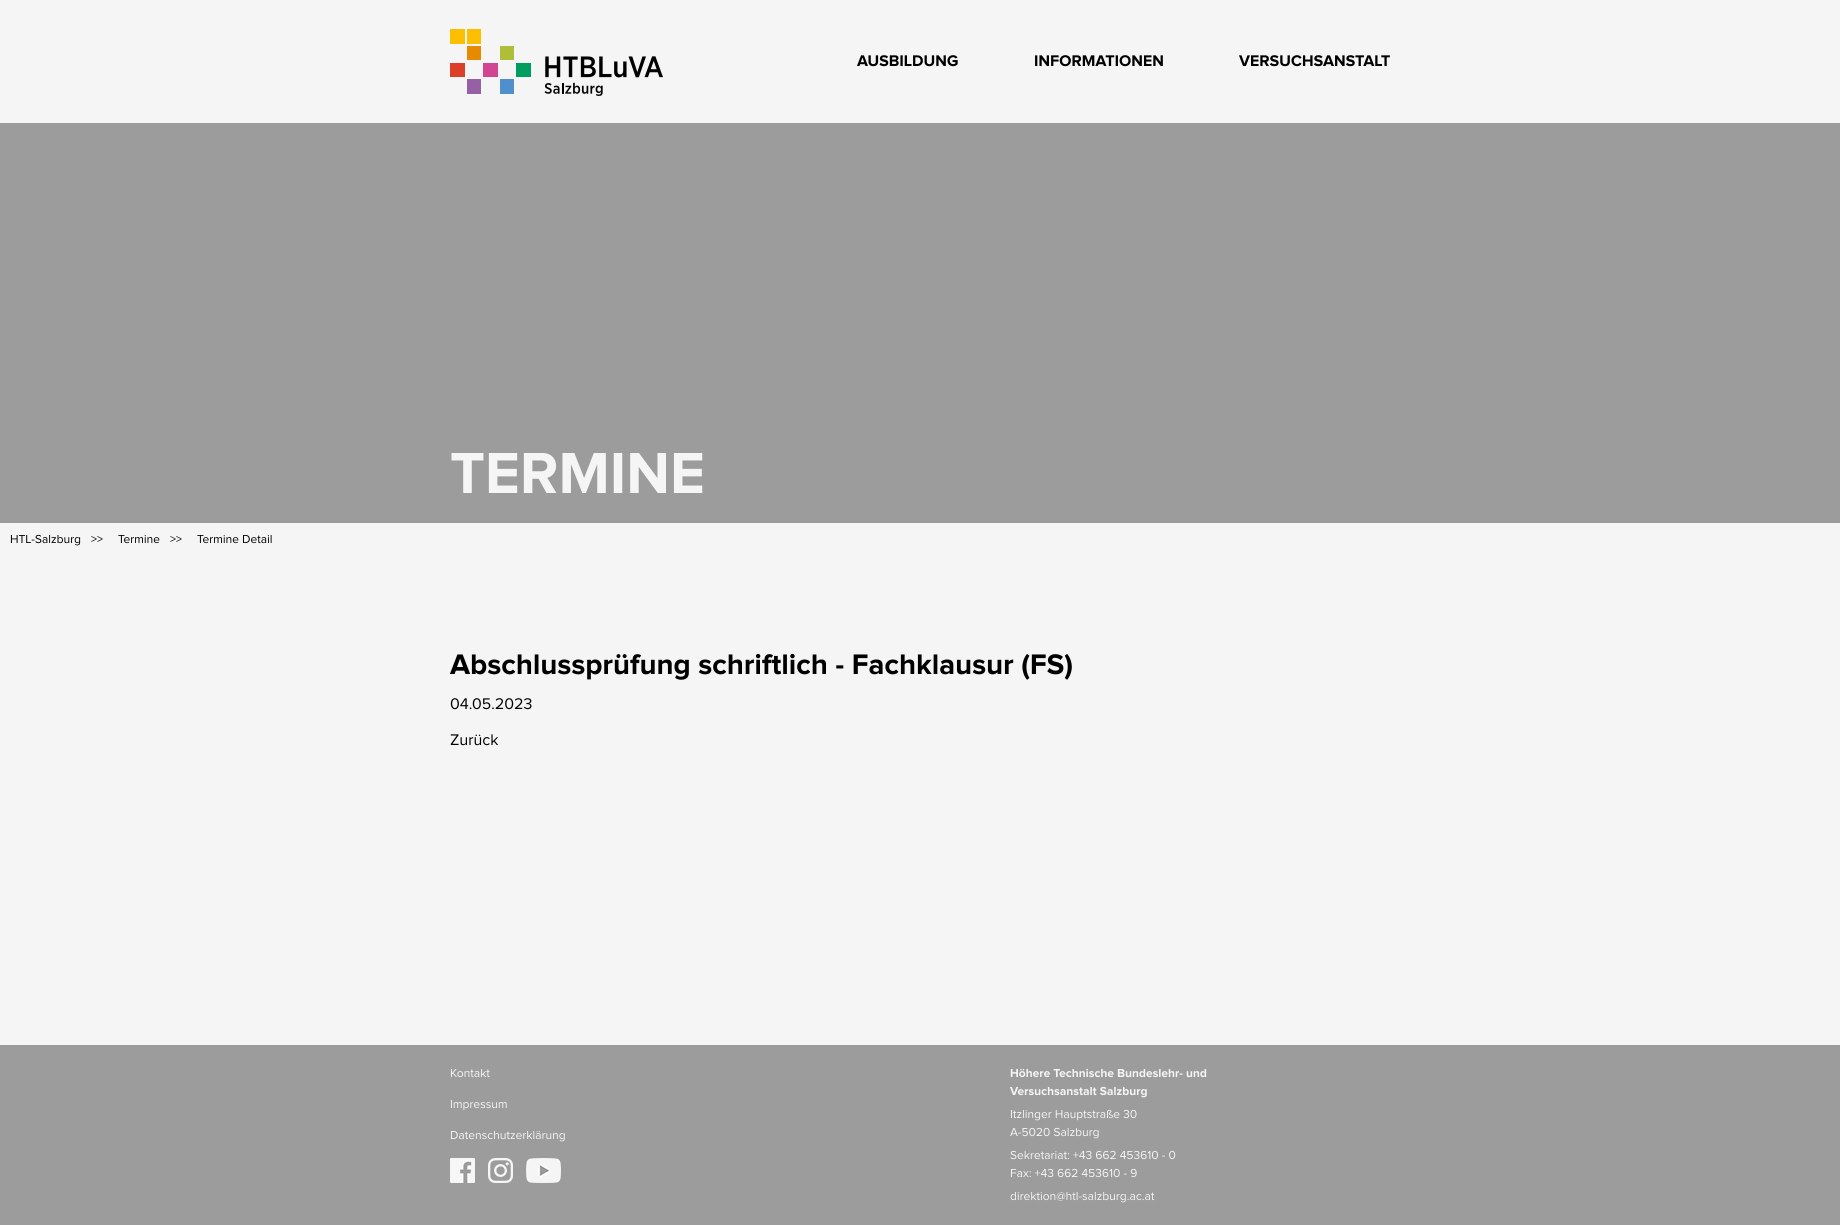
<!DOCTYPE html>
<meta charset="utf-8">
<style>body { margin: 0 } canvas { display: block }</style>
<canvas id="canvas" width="1840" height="1225"></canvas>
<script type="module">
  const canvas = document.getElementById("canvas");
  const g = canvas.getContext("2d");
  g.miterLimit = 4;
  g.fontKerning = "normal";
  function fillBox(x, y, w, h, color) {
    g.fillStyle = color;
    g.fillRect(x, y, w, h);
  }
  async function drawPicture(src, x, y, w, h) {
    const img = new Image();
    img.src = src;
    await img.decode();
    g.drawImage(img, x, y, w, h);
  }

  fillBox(0, 0, 1840, 1225, "#F5F5F5");
  await drawPicture("pic1.png", 450, 29, 213, 67);
  await drawPicture("pic2.png", 857, 55, 101, 12);
  await drawPicture("pic3.png", 1035, 55, 128, 12);
  await drawPicture("pic4.png", 1239, 55, 151, 12);
  fillBox(0, 123, 1840, 400, "#9D9C9C");
  await drawPicture("pic5.png", 451, 453, 252, 40);
  await drawPicture("pic6.png", 10, 534, 71, 12);
  await drawPicture("pic7.png", 91, 536, 12, 6);
  await drawPicture("pic8.png", 118, 535, 42, 9);
  await drawPicture("pic7.png", 170, 536, 12, 6);
  await drawPicture("pic9.png", 197, 535, 75, 9);
  await drawPicture("pic10.png", 450, 653, 622, 27);
  await drawPicture("pic11.png", 450, 698, 82, 12);
  await drawPicture("pic12.png", 450, 734, 49, 12);
  fillBox(0, 1045, 1840, 180, "#9D9C9C");
  await drawPicture("pic13.png", 450, 1069, 40, 9);
  await drawPicture("pic14.png", 450, 1100, 57, 11);
  await drawPicture("pic15.png", 450, 1131, 115, 11);
  await drawPicture("pic16.png", 450, 1158, 25, 25);
  await drawPicture("pic17.png", 488, 1158, 25, 25);
  await drawPicture("pic18.png", 526, 1158, 35, 25);
  await drawPicture("pic19.png", 1010, 1068, 197, 10);
  await drawPicture("pic20.png", 1010, 1086, 137, 12);
  await drawPicture("pic21.png", 1010, 1109, 127, 12);
  await drawPicture("pic22.png", 1010, 1127, 89, 12);
  await drawPicture("pic23.png", 1010, 1150, 166, 10);
  await drawPicture("pic24.png", 1010, 1168, 127, 10);
  await drawPicture("pic25.png", 1010, 1192, 145, 11);
</script>
